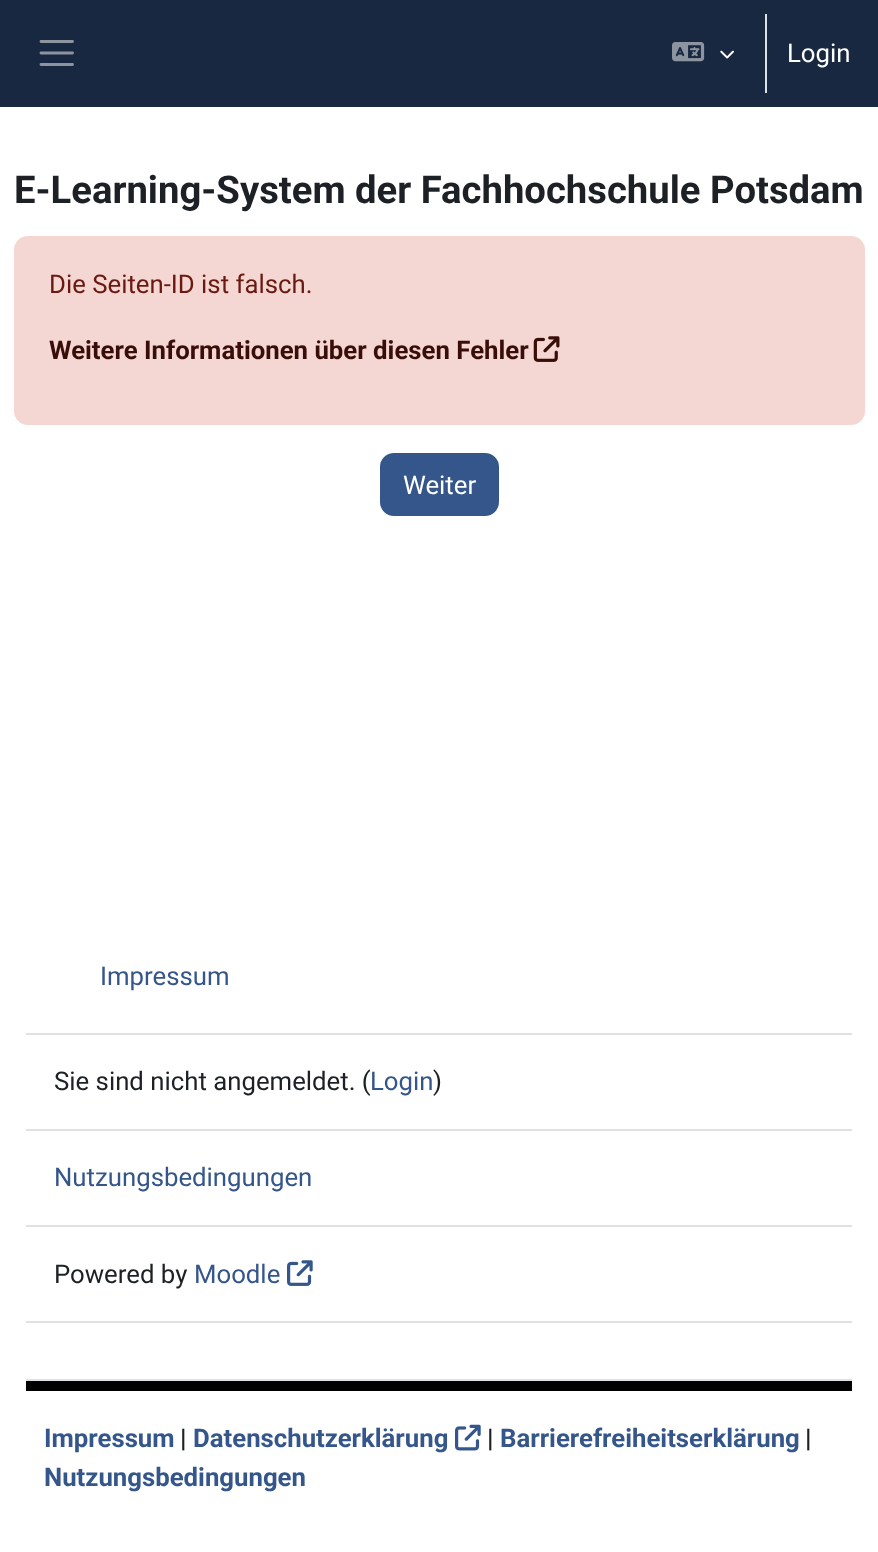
<!DOCTYPE html>
<meta charset="utf-8">
<style>body { margin: 0 } canvas { display: block }</style>
<canvas id="canvas" width="878" height="1552"></canvas>
<script type="module">
  const canvas = document.getElementById("canvas");
  const g = canvas.getContext("2d");
  g.miterLimit = 4;
  g.fontKerning = "normal";
  function drawText(s, x, y, [font, color]) {
    g.font = font;
    g.fillStyle = color;
    g.fillText(s, x, y);
  }
  function fillBox(x, y, w, h, color) {
    g.fillStyle = color;
    g.fillRect(x, y, w, h);
  }
  function fillRounded(x, y, w, h, r, color) {
    g.fillStyle = color;
    g.beginPath();
    g.roundRect(x, y, w, h, r);
    g.fill();
  }
  async function drawPicture(src, x, y, w, h) {
    const img = new Image();
    img.src = src;
    await img.decode();
    g.drawImage(img, x, y, w, h);
  }

  const s1 = ["25.75px Roboto", "#FFFFFF"];
  const s2 = ["bold 38.25px Roboto", "#1D2125"];
  const s3 = ["25.75px Roboto", "#691911"];
  const s4 = ["bold 25.75px Roboto", "#390E09"];
  const s5 = ["25.75px Roboto", "#35568B"];
  const s6 = ["25.75px Roboto", "#1D2125"];
  const s7 = ["bold 25.75px Roboto", "#35568B"];
  const s8 = ["bold 25.75px Roboto", "#1D2125"];

  fillBox(0, 0, 878, 1552, "#FFFFFF");
  fillBox(0, 0, 878, 107, "#192841");
  g.beginPath();
  g.moveTo(41, 41.5);
  g.lineTo(72.5, 41.5);
  g.moveTo(41, 53);
  g.lineTo(72.5, 53);
  g.moveTo(41, 64.5);
  g.lineTo(72.5, 64.5);
  g.strokeStyle = "#8C94A0";
  g.lineWidth = 2.9;
  g.lineCap = "round";
  g.stroke();
  await drawPicture("pic1.png", 672, 42, 33, 20);
  await drawPicture("pic2.png", 720, 50, 14, 9);
  fillBox(765, 14, 2, 79, "#DEE2E6");
  drawText("Login", 787, 62, s1);
  drawText("E-Learning-System der Fachhochschule Potsdam", 14, 203, s2);
  fillRounded(14, 236, 851, 189, 14, "#F4D6D2");
  drawText("Die Seiten-ID ist falsch.", 49, 293, s3);
  drawText("Weitere Informationen über diesen Fehler", 49, 359, s4);
  await drawPicture("pic3.png", 533, 336, 27, 26);
  g.fillStyle = "#35568B";
  g.beginPath();
  g.roundRect(381, 454, 117, 61, 13);
  g.fill();
  g.strokeStyle = "#35568B";
  g.lineWidth = 2;
  g.stroke();
  drawText("Weiter", 403, 494, s1);
  fillBox(26, 1033, 826, 2, "#DEE2E6");
  drawText("Impressum", 100, 985, s5);
  fillBox(26, 1129, 826, 2, "#DEE2E6");
  drawText("Sie sind nicht angemeldet. (", 54, 1090, s6);
  drawText("Login", 370, 1090, s5);
  drawText(")", 433, 1090, s6);
  fillBox(26, 1225, 826, 2, "#DEE2E6");
  drawText("Nutzungsbedingungen", 54, 1186, s5);
  fillBox(26, 1321, 826, 2, "#DEE2E6");
  drawText("Powered by", 54, 1283, s6);
  drawText("Moodle", 194, 1283, s5);
  await drawPicture("pic4.png", 287, 1260, 26, 26);
  fillBox(26, 1379, 826, 2, "#DEE2E6");
  fillBox(26, 1381, 826, 10, "#000000");
  drawText("Impressum", 44, 1447, s7);
  drawText("|", 180, 1447, s8);
  drawText("Datenschutzerklärung", 193, 1447, s7);
  await drawPicture("pic5.png", 455, 1424, 26, 27);
  drawText("|", 487, 1447, s8);
  drawText("Barrierefreiheitserklärung", 500, 1447, s7);
  drawText("|", 805, 1447, s8);
  drawText("Nutzungsbedingungen", 44, 1486, s7);
</script>
